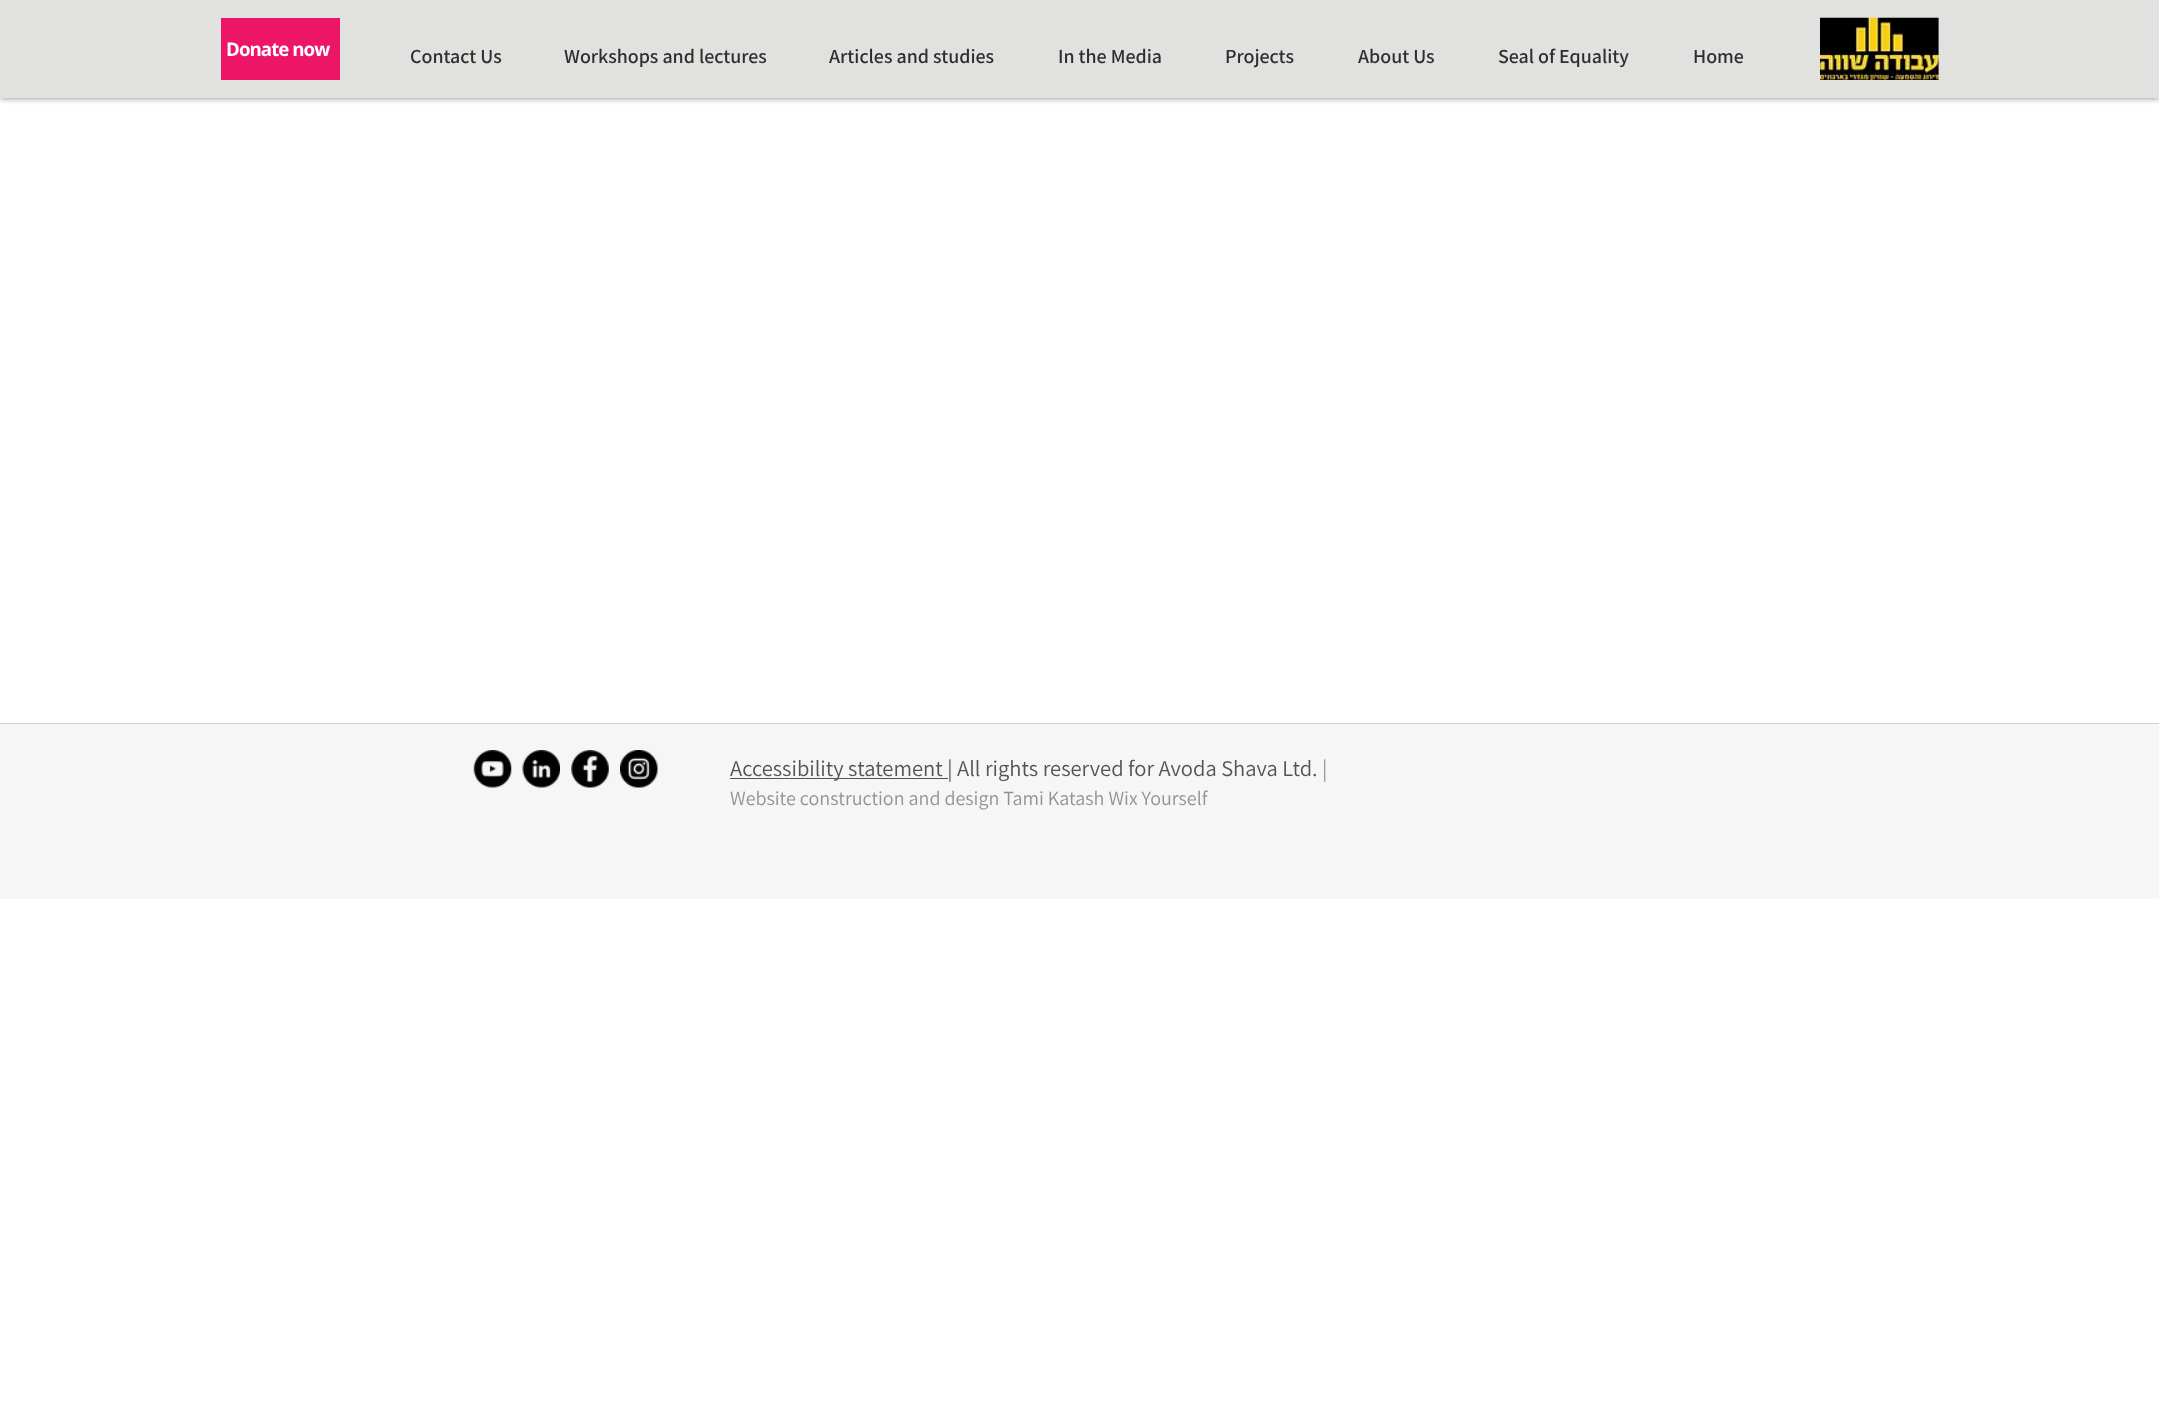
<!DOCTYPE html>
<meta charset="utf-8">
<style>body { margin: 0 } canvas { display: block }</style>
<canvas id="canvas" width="2159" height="1414"></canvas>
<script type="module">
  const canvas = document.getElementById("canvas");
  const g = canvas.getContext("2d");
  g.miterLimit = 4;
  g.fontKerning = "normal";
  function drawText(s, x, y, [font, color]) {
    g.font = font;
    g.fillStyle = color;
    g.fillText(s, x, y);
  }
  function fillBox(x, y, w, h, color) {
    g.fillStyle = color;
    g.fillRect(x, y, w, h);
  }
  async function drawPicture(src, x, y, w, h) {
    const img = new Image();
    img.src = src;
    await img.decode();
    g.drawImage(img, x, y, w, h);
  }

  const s1 = ["bold 18.75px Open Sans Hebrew", "#FFFFFF"];
  const s2 = ["600 20px Assistant", "#2F2E2E"];
  const s3 = ["22.5px Assistant", "#545454"];
  const s4 = ["22.5px Assistant", "#929292"];
  const s5 = ["20px Assistant", "#929292"];

  fillBox(0, 0, 2159, 1414, "#FFFFFF");
  g.fillStyle = "rgba(0, 0, 0, 0.5)";
  g.filter = "blur(3px)";
  g.beginPath();
  g.rect(0, 0, 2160, 98);
  g.fill();
  g.filter = "none";
  fillBox(0, 0, 2159, 98, "#E1E1DF");
  fillBox(221, 18, 119, 62, "#ED1566");
  g.save();
  g.beginPath();
  g.rect(226, 36, 104, 25);
  g.clip();
  g.letterSpacing = "-1px";
  drawText("Donate now", 226, 56, s1);
  g.restore();
  drawText("Contact Us", 410, 63, s2);
  drawText("Workshops and lectures", 564, 63, s2);
  drawText("Articles and studies", 829, 63, s2);
  drawText("In the Media", 1058, 63, s2);
  drawText("Projects", 1225, 63, s2);
  drawText("About Us", 1358, 63, s2);
  drawText("Seal of Equality", 1498, 63, s2);
  drawText("Home", 1693, 63, s2);
  await drawPicture("pic1.png", 1820, 17, 119, 63);
  fillBox(0, 724, 2159, 175, "#F6F6F6");
  fillBox(0, 723, 2159, 1, "#D1D1D1");
  await drawPicture("pic2.png", 473, 750, 39, 38);
  await drawPicture("pic3.png", 522, 750, 38, 38);
  await drawPicture("pic4.png", 571, 750, 38, 38);
  await drawPicture("pic5.png", 620, 750, 38, 38);
  fillBox(730, 778, 218, 1, "#545454");
  drawText("Accessibility statement | All rights reserved for Avoda Shava Ltd.", 730, 776, s3);
  drawText("|", 1322, 776, s4);
  drawText("Website construction and design Tami Katash Wix Yourself", 730, 805, s5);
</script>
